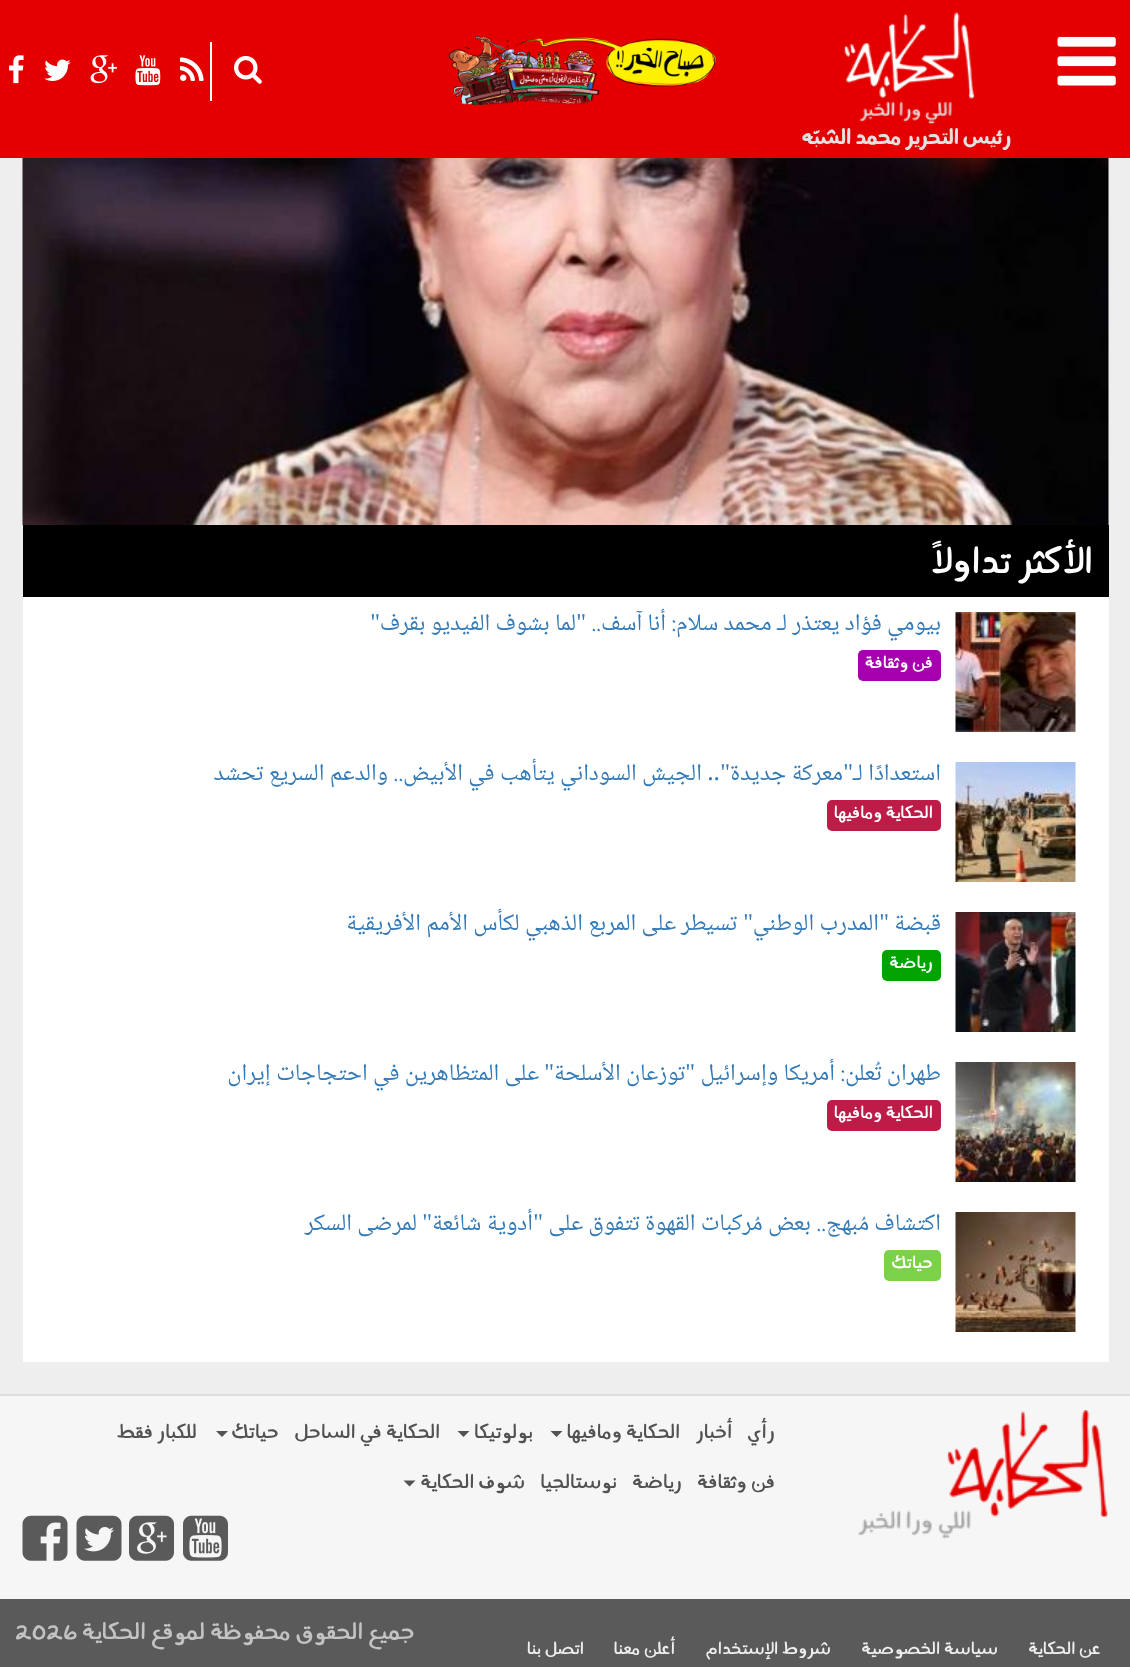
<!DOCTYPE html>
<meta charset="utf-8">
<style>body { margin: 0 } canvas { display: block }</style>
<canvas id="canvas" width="1130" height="1667"></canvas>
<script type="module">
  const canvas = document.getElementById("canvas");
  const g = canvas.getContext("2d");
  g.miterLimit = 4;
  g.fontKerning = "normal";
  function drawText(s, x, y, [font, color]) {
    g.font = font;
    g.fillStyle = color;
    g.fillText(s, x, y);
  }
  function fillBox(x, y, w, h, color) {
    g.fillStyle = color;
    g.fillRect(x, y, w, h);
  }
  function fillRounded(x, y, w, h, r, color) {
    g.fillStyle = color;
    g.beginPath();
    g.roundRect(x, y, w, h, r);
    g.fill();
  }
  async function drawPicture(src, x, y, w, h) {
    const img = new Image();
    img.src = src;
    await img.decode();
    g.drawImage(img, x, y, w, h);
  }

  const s1 = ["bold 25.5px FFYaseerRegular", "#E1E1E1"];
  const s2 = ["45px FFYaseerRegular", "#FFFFFF"];
  const s3 = ["24px Noto Naskh Arabic", "#337AB7"];
  const s4 = ["24px Liberation Serif", "#337AB7"];
  const s5 = ["21px FFYaseerRegular", "#FFFFFF"];
  const s6 = ["24px FFYaseerRegular", "#525252"];
  const s7 = ["21px FFYaseerRegular", "#EEEEEE"];
  const s8 = ["28.5px FFYaseerRegular", "#C3C3C3"];

  fillBox(0, 0, 1130, 1667, "#EEEEEE");
  fillBox(0, 0, 1130, 158, "#E40000");
  await drawPicture("pic1.png", 1057, 36, 59, 50);
  await drawPicture("pic2.png", 844, 12, 131, 112);
  await drawPicture("pic3.png", 448, 35, 268, 70);
  fillBox(210, 42, 2, 59, "#FFFFFF");
  await drawPicture("pic4.png", 234, 55, 28, 29);
  await drawPicture("pic5.png", 180, 57, 24, 24);
  await drawPicture("pic6.png", 135, 55, 26, 31);
  await drawPicture("pic7.png", 90, 55, 27, 29);
  await drawPicture("pic8.png", 44, 59, 27, 22);
  await drawPicture("pic9.png", 9, 55, 15, 29);
  g.direction = "rtl";
  drawText("رئيس التحرير محمد الشبّه", 1011, 144, s1);
  await drawPicture("pic10.png", 22, 158, 1087, 367);
  fillBox(23, 597, 1086, 765, "#FFFFFF");
  fillBox(23, 525, 1086, 72, "#000000");
  drawText("الأكثر تداولاً", 1093, 573, s2);
  await drawPicture("pic11.png", 955, 612, 121, 120);
  drawText("بيومي فؤاد يعتذر لـ محمد سلام: أنا آسف..", 941, 630, s3);
  drawText("\"", 586, 630, s4);
  drawText("لما بشوف الفيديو بقرف", 576, 630, s3);
  drawText("\"", 380, 630, s4);
  fillRounded(858, 650, 83, 31, 5, "#A600AE");
  drawText("فن وثقافة", 933, 668, s5);
  await drawPicture("pic12.png", 955, 762, 121, 120);
  drawText("استعدادًا لـ", 941, 780, s3);
  drawText("\"", 853, 780, s4);
  drawText("معركة جديدة", 843, 780, s3);
  drawText("\"", 730, 780, s4);
  drawText(".. الجيش السوداني يتأهب في الأبيض.. والدعم السريع تحشد", 720, 780, s3);
  fillRounded(827, 800, 114, 31, 5, "#BD1C49");
  drawText("الحكاية ومافيها", 933, 818, s5);
  await drawPicture("pic13.png", 955, 912, 121, 120);
  drawText("قبضة", 941, 930, s3);
  drawText("\"", 889, 930, s4);
  drawText("المدرب الوطني", 879, 930, s3);
  drawText("\"", 753, 930, s4);
  drawText("تسيطر على المربع الذهبي لكأس الأمم الأفريقية", 737, 930, s3);
  fillRounded(882, 950, 59, 31, 5, "#00A300");
  drawText("رياضة", 933, 968, s5);
  await drawPicture("pic14.png", 955, 1062, 121, 120);
  drawText("طهران تُعلن: أمريكا وإسرائيل", 941, 1080, s3);
  drawText("\"", 695, 1080, s4);
  drawText("توزعان الأسلحة", 685, 1080, s3);
  drawText("\"", 554, 1080, s4);
  drawText("على المتظاهرين في احتجاجات إيران", 539, 1080, s3);
  fillRounded(827, 1100, 114, 31, 5, "#BD1C49");
  drawText("الحكاية ومافيها", 933, 1118, s5);
  await drawPicture("pic15.png", 955, 1212, 121, 120);
  drawText("اكتشاف مُبهج.. بعض مُركبات القهوة تتفوق على", 941, 1230, s3);
  drawText("\"", 543, 1230, s4);
  drawText("أدوية شائعة", 533, 1230, s3);
  drawText("\"", 432, 1230, s4);
  drawText("لمرضى السكر", 417, 1230, s3);
  fillRounded(884, 1250, 57, 31, 5, "#7BD148");
  drawText("حياتك", 933, 1268, s5);
  fillBox(0, 1396, 1130, 203, "#F6F6F6");
  fillBox(0, 1394, 1130, 2, "#DDDDDD");
  await drawPicture("pic16.png", 858, 1410, 250, 129);
  drawText("رأي", 775, 1438, s6);
  drawText("أخبار", 732, 1438, s6);
  drawText("الحكاية ومافيها", 680, 1438, s6);
  g.beginPath();
  g.moveTo(550.5, 1431);
  g.lineTo(562.5, 1431);
  g.lineTo(556.5, 1437);
  g.closePath();
  g.fill();
  drawText("بولوتيكا", 533, 1438, s6);
  g.beginPath();
  g.moveTo(457.5, 1431);
  g.lineTo(469.5, 1431);
  g.lineTo(463.5, 1437);
  g.closePath();
  g.fill();
  drawText("الحكاية في الساحل", 440, 1438, s6);
  drawText("حياتك", 279, 1438, s6);
  g.beginPath();
  g.moveTo(216, 1431);
  g.lineTo(228, 1431);
  g.lineTo(222, 1437);
  g.closePath();
  g.fill();
  drawText("للكبار فقط", 197, 1438, s6);
  drawText("فن وثقافة", 775, 1488, s6);
  drawText("رياضة", 682, 1488, s6);
  drawText("نوستالجيا", 617, 1488, s6);
  drawText("شوف الحكاية", 525, 1488, s6);
  g.beginPath();
  g.moveTo(403.5, 1480.5);
  g.lineTo(415.5, 1480.5);
  g.lineTo(409.5, 1486.5);
  g.closePath();
  g.fill();
  await drawPicture("pic17.png", 183, 1515, 45, 46);
  await drawPicture("pic18.png", 129, 1515, 45, 46);
  await drawPicture("pic19.png", 76, 1515, 46, 46);
  await drawPicture("pic20.png", 22, 1515, 46, 46);
  fillBox(0, 1599, 1130, 68, "#5A5A5A");
  drawText("عن الحكاية", 1101, 1654, s7);
  drawText("سياسة الخصوصية", 998, 1654, s7);
  drawText("شروط الإستخدام", 831, 1654, s7);
  drawText("أعلن معنا", 675, 1654, s7);
  drawText("اتصل بنا", 584, 1654, s7);
  drawText("جميع الحقوق محفوظة لموقع الحكاية", 415, 1639, s8);
  g.direction = "ltr";
  drawText("2026", 15, 1639, s8);
</script>
